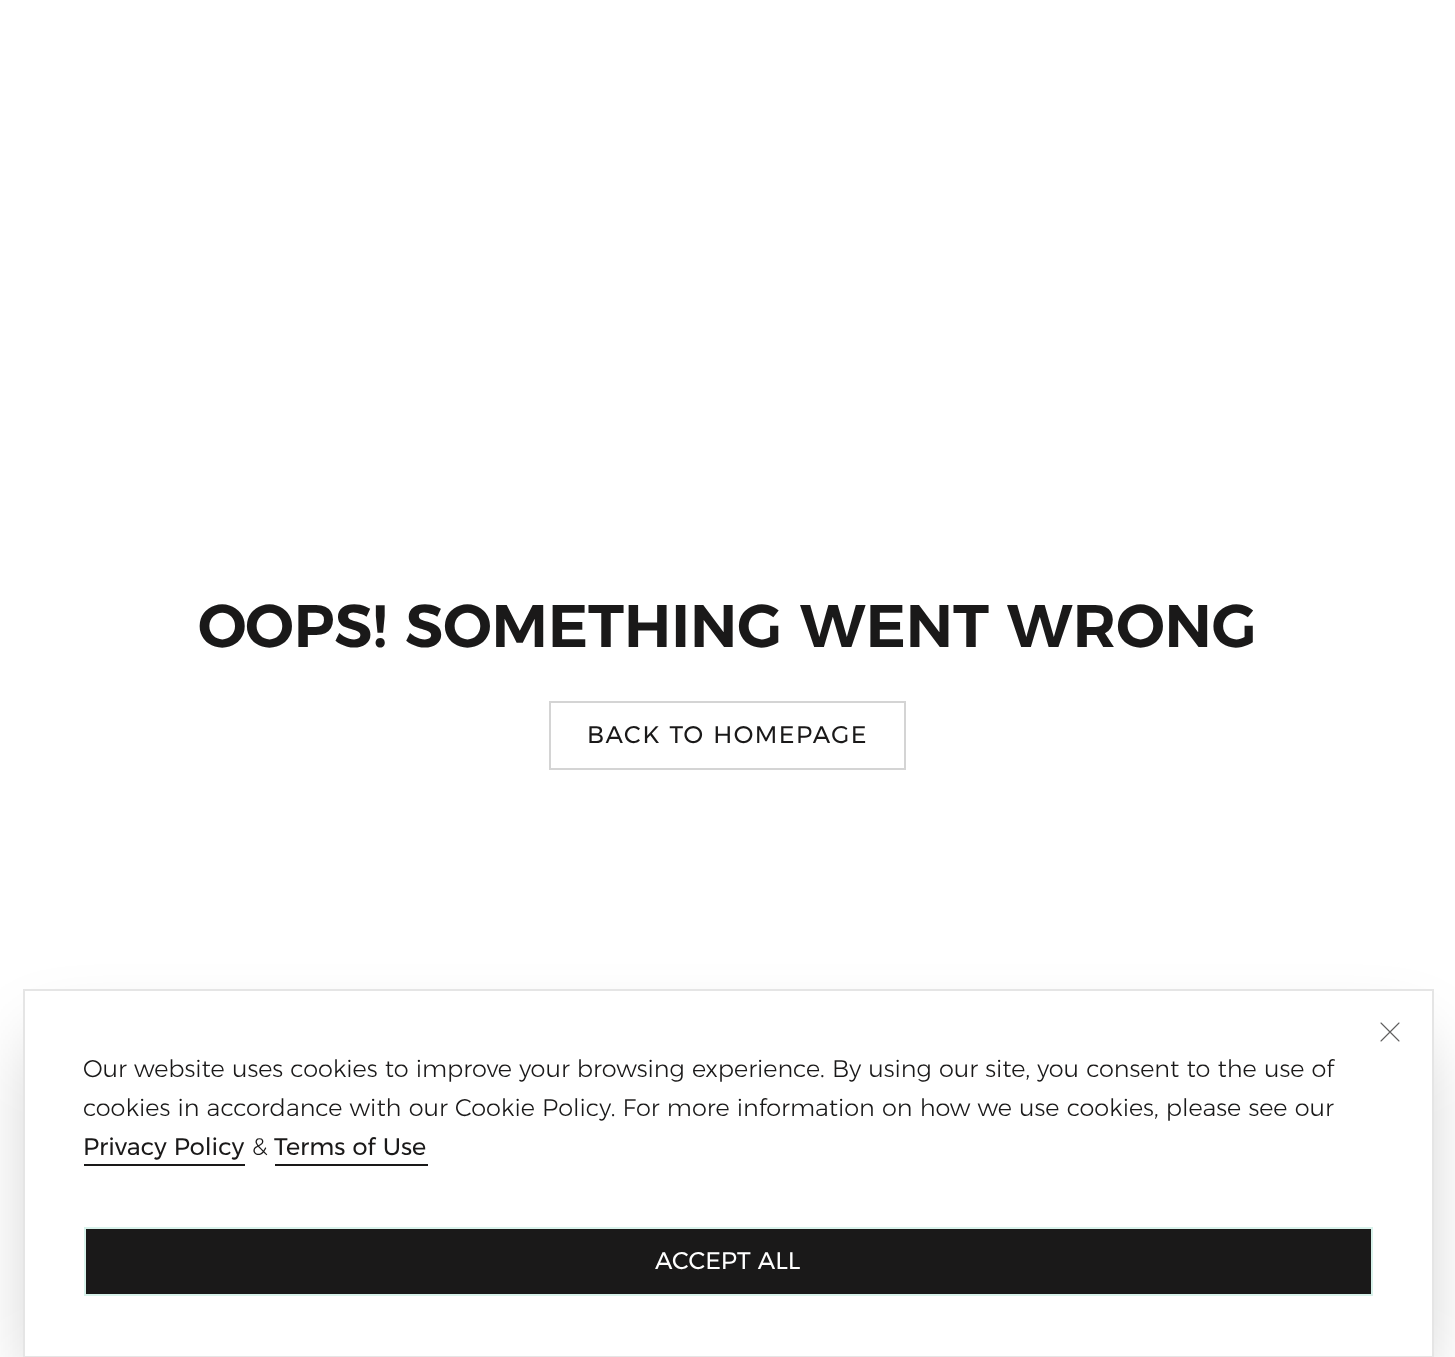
<!DOCTYPE html>
<meta charset="utf-8">
<style>body { margin: 0 } canvas { display: block }</style>
<canvas id="canvas" width="1455" height="1357"></canvas>
<script type="module">
  const canvas = document.getElementById("canvas");
  const g = canvas.getContext("2d");
  g.miterLimit = 4;
  g.fontKerning = "normal";
  function drawText(s, x, y, [font, color]) {
    g.font = font;
    g.fillStyle = color;
    g.fillText(s, x, y);
  }
  function fillBox(x, y, w, h, color) {
    g.fillStyle = color;
    g.fillRect(x, y, w, h);
  }

  const s1 = ["600 60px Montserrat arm", "#1A1919"];
  const s2 = ["24px Montserrat arm", "#1A1919"];
  const s3 = ["300 24px Montserrat arm", "#1A1919"];
  const s4 = ["24px Montserrat arm", "#FFFFFF"];

  fillBox(0, 0, 1455, 1357, "#FFFFFF");
  drawText("OOPS! SOMETHING WENT WRONG", 198, 647, s1);
  g.strokeStyle = "#D4D4D4";
  g.lineWidth = 2;
  g.strokeRect(550, 702, 355, 67);
  g.letterSpacing = "1.5px";
  drawText("BACK TO HOMEPAGE", 587, 743, s2);
  g.fillStyle = "rgba(0, 0, 0, 0.25)";
  g.filter = "blur(37.5px)";
  g.beginPath();
  g.rect(41, 1044, 1375, 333);
  g.fill();
  g.filter = "none";
  g.fillStyle = "#FFFFFF";
  g.beginPath();
  g.rect(24, 990, 1409, 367);
  g.fill();
  g.strokeStyle = "#E5E5E5";
  g.stroke();
  g.beginPath();
  g.moveTo(1399, 1023);
  g.lineTo(1381, 1041);
  g.moveTo(1381, 1023);
  g.lineTo(1399, 1041);
  g.strokeStyle = "#5F5E5E";
  g.lineWidth = 1.1;
  g.lineCap = "round";
  g.lineJoin = "round";
  g.stroke();
  g.letterSpacing = "0px";
  drawText("Our website uses cookies to improve your browsing experience. By using our site, you consent to the use of", 83, 1077, s3);
  drawText("cookies in accordance with our Cookie Policy. For more information on how we use cookies, please see our", 83, 1116, s3);
  drawText("Privacy Policy", 83, 1155, s2);
  fillBox(84, 1164, 161, 2, "#1A1919");
  drawText("&", 252, 1155, s3);
  drawText("Terms of Use", 274, 1155, s2);
  fillBox(275, 1164, 153, 2, "#1A1919");
  g.beginPath();
  g.rect(85, 1228, 1287, 67);
  g.fill();
  g.strokeStyle = "#D8F2EB";
  g.lineWidth = 2;
  g.lineJoin = "miter";
  g.stroke();
  drawText("ACCEPT ALL", 655, 1269, s4);
</script>
